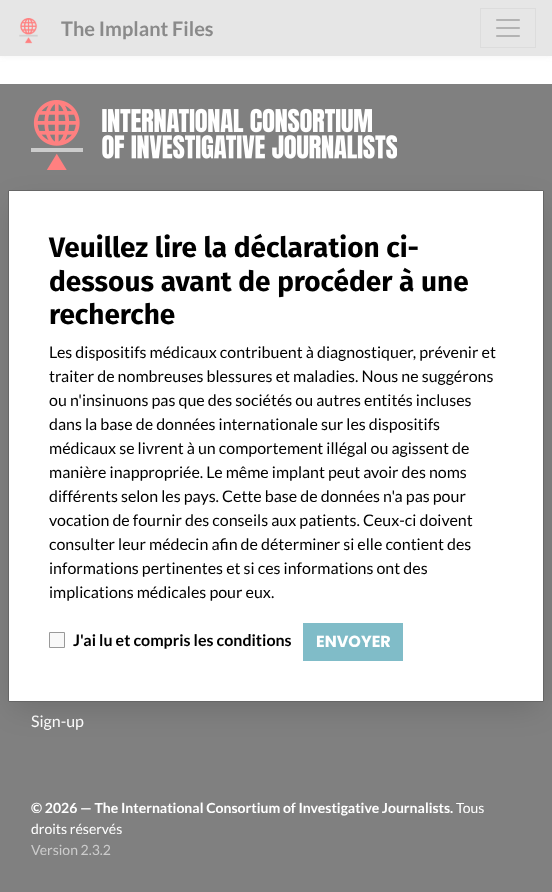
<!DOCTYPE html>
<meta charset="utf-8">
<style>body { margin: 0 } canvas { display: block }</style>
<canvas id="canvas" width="552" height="892"></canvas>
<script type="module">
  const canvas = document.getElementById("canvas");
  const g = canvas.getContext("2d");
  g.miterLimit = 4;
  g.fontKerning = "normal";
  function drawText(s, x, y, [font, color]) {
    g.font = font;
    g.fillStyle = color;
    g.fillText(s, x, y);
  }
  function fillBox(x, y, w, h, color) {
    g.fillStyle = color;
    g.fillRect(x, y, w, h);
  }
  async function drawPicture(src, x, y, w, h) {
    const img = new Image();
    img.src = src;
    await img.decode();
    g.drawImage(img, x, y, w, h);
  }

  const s1 = ["bold 20px Lato", "#8A8A8A"];
  const s2 = ["16px Lato", "#FFFFFF"];
  const s3 = ["bold 14px Lato", "#FFFFFF"];
  const s4 = ["14px Lato", "#FFFFFF"];
  const s5 = ["14px Lato", "#CCCCCC"];
  const s6 = ["bold 28px Fira Sans", "#000000"];
  const s7 = ["16px Lato", "#000000"];
  const s8 = ["bold 16px Lato", "#000000"];
  const s9 = ["bold 16px Poppins", "#FFFFFF"];

  fillBox(0, 0, 552, 892, "#FFFFFF");
  g.fillStyle = "rgba(128, 128, 128, 0.1)";
  g.filter = "blur(3px)";
  g.beginPath();
  g.rect(0, 0, 552, 56);
  g.fill();
  g.filter = "none";
  fillBox(0, 0, 552, 56, "#E6E6E6");
  await drawPicture("pic1.png", 19, 18, 19, 26);
  drawText("The Implant Files", 61, 36, s1);
  g.strokeStyle = "#DCDCDC";
  g.strokeRect(480.5, 8.5, 55, 39);
  await drawPicture("pic2.png", 496, 19, 24, 18);
  fillBox(0, 84, 552, 808, "#808080");
  await drawPicture("pic3.png", 31, 100, 366, 70);
  drawText("Sign-up", 31, 727, s2);
  drawText("© 2026 — The International Consortium of Investigative Journalists.", 31, 813, s3);
  drawText("Tous", 456, 813, s4);
  drawText("droits réservés", 31, 834, s4);
  drawText("Version 2.3.2", 31, 855, s5);
  g.fillStyle = "rgba(0, 0, 0, 0.15)";
  g.filter = "blur(15px)";
  g.beginPath();
  g.rect(13, 205, 526, 502);
  g.fill();
  g.filter = "none";
  g.fillStyle = "#FFFFFF";
  g.beginPath();
  g.rect(8.5, 190.5, 535, 511);
  g.fill();
  g.strokeStyle = "#666666";
  g.stroke();
  drawText("Veuillez lire la déclaration ci-", 49, 257, s6);
  drawText("dessous avant de procéder à une", 49, 291, s6);
  drawText("recherche", 49, 324, s6);
  drawText("Les dispositifs médicaux contribuent à diagnostiquer, prévenir et", 49, 358, s7);
  drawText("traiter de nombreuses blessures et maladies. Nous ne suggérons", 49, 382, s7);
  drawText("ou n'insinuons pas que des sociétés ou autres entités incluses", 49, 406, s7);
  drawText("dans la base de données internationale sur les dispositifs", 49, 430, s7);
  drawText("médicaux se livrent à un comportement illégal ou agissent de", 49, 454, s7);
  drawText("manière inappropriée. Le même implant peut avoir des noms", 49, 478, s7);
  drawText("différents selon les pays. Cette base de données n'a pas pour", 49, 502, s7);
  drawText("vocation de fournir des conseils aux patients. Ceux-ci doivent", 49, 526, s7);
  drawText("consulter leur médecin afin de déterminer si elle contient des", 49, 550, s7);
  drawText("informations pertinentes et si ces informations ont des", 49, 574, s7);
  drawText("implications médicales pour eux.", 49, 598, s7);
  g.fillStyle = "#F8F8F8";
  g.beginPath();
  g.rect(49.5, 632.5, 15, 15);
  g.fill();
  g.strokeStyle = "#999999";
  g.stroke();
  drawText("J'ai lu et compris les conditions", 73, 646, s8);
  fillBox(303, 623, 100, 38, "#80BCC8");
  drawText("ENVOYER", 316, 647, s9);
</script>
